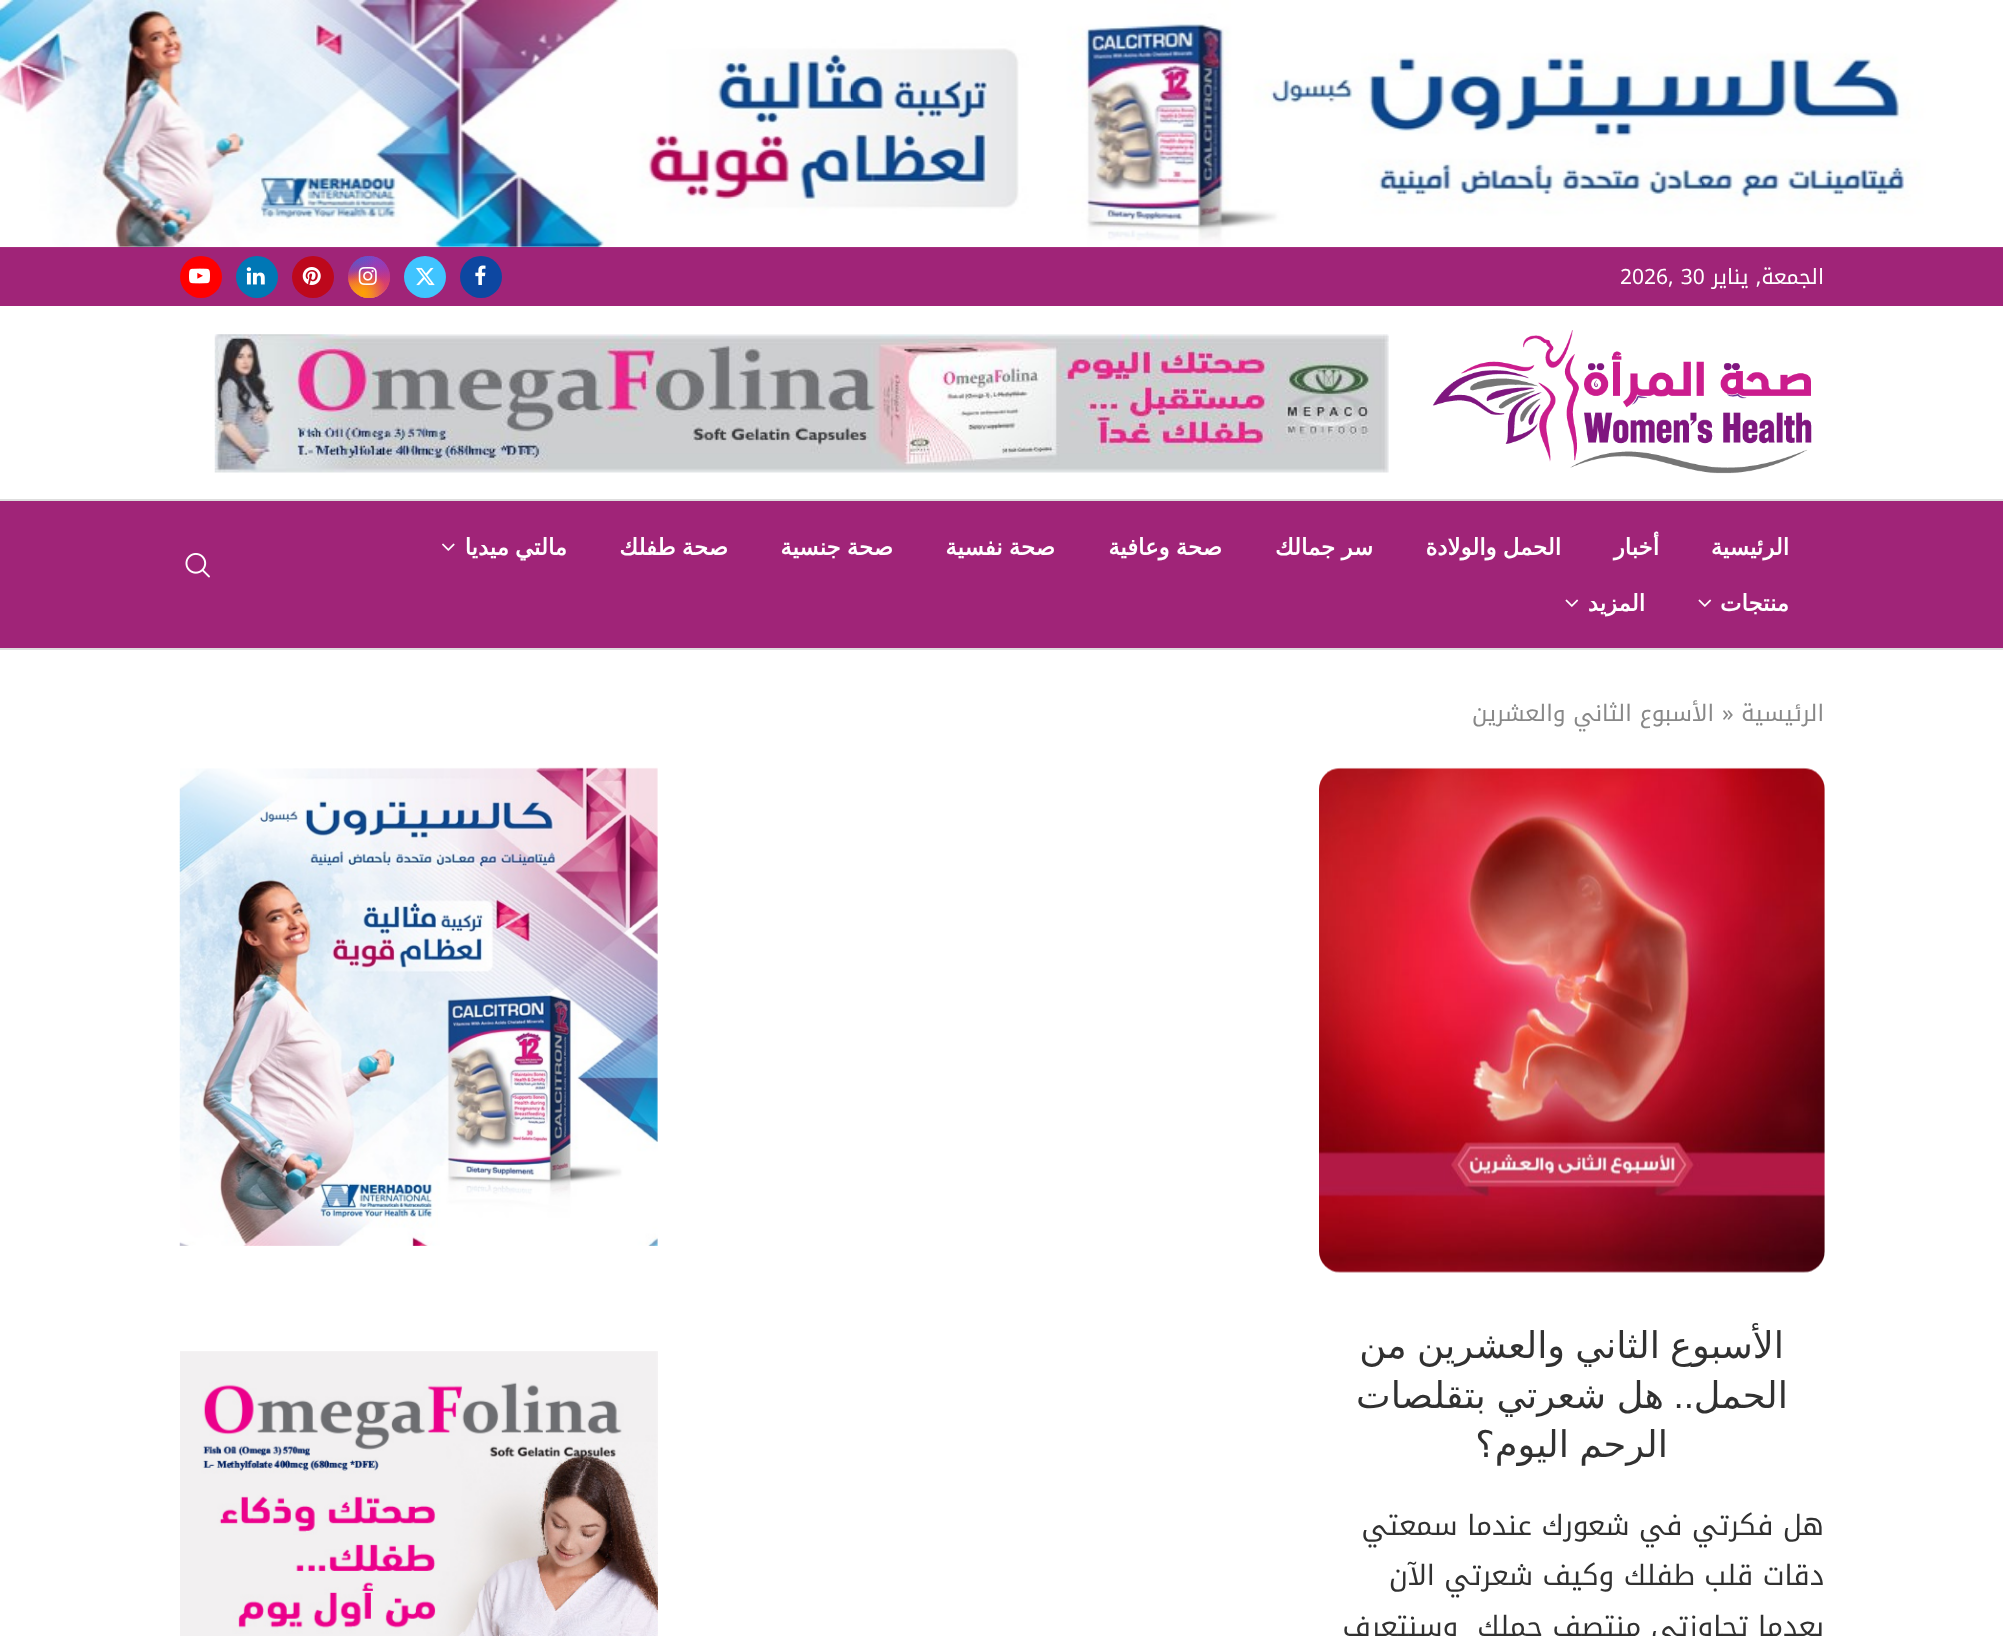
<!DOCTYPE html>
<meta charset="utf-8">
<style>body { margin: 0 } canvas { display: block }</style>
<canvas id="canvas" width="2003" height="1636"></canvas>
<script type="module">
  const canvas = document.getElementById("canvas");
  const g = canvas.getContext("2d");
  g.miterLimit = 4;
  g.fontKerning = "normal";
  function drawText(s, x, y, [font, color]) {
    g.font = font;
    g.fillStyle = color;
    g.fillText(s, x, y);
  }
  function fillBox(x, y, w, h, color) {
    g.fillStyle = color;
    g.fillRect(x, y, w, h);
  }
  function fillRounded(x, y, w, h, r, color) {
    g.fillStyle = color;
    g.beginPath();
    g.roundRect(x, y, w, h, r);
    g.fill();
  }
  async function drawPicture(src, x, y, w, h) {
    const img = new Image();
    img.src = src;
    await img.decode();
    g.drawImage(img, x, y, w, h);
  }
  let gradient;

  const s1 = ["21px Noto Kufi Arabic", "#FFFFFF"];
  const s2 = ["bold 22.75px DejaVu Sans", "#FFFFFF"];
  const s3 = ["22.75px Noto Kufi Arabic", "#888888"];
  const s4 = ["36.75px DejaVu Sans", "#313131"];
  const s5 = ["36.75px Liberation Sans", "#313131"];
  const s6 = ["28px Noto Kufi Arabic", "#313131"];

  fillBox(0, 0, 2003, 1636, "#FFFFFF");
  fillBox(0, 247, 2003, 59, "#A02478");
  await drawPicture("pic1.png", 0, 0, 2003, 248);
  g.direction = "rtl";
  drawText("الجمعة, يناير", 1824, 284, s1);
  g.direction = "ltr";
  drawText("2026, 30", 1620, 284, s1);
  g.fillStyle = "#0D47A1";
  g.beginPath();
  g.arc(481, 277, 21, 0, Math.PI * 2);
  g.fill();
  await drawPicture("pic2.png", 475, 265, 11, 20);
  g.fillStyle = "#40C4FF";
  g.beginPath();
  g.arc(425, 277, 21, 0, Math.PI * 2);
  g.fill();
  await drawPicture("pic3.png", 416, 267, 19, 19);
  gradient = g.createLinearGradient(369, 256, 369, 298);
  gradient.addColorStop(0, "#6559CA");
  gradient.addColorStop(0.3, "#BC318F");
  gradient.addColorStop(0.5, "#E33F5F");
  gradient.addColorStop(0.7, "#F77638");
  gradient.addColorStop(1, "#FEC66D");
  g.fillStyle = gradient;
  g.beginPath();
  g.arc(369, 277, 21, 0, Math.PI * 2);
  g.fill();
  gradient = g.createRadialGradient(390, 298, 0, 390, 298, 59);
  gradient.addColorStop(0, "#D43178");
  gradient.addColorStop(1, "rgba(212, 49, 120, 0)");
  g.fillStyle = gradient;
  g.beginPath();
  g.arc(369, 277, 21, 0, Math.PI * 2);
  g.fill();
  gradient = g.createRadialGradient(373, 125.24, 0, 373, 125.24, 36);
  gradient.addColorStop(0, "#8F44C7");
  gradient.addColorStop(0.5, "rgba(143, 68, 199, 0)");
  g.fillStyle = gradient;
  g.beginPath();
  g.arc(369, 277, 21, 0, Math.PI * 2);
  g.save();
  g.clip();
  g.scale(1, 71 / 36);
  g.fillRect(0, 0, 2003, 830);
  g.restore();
  gradient = g.createRadialGradient(390, 256, 0, 390, 256, 59);
  gradient.addColorStop(0, "#893DC2");
  gradient.addColorStop(0.5, "rgba(137, 61, 194, 0)");
  g.fillStyle = gradient;
  g.beginPath();
  g.arc(369, 277, 21, 0, Math.PI * 2);
  g.fill();
  gradient = g.createRadialGradient(357, 126.74, 0, 357, 126.74, 48);
  gradient.addColorStop(0, "#5258CF");
  gradient.addColorStop(0.5, "rgba(82, 88, 207, 0)");
  g.fillStyle = gradient;
  g.beginPath();
  g.arc(369, 277, 21, 0, Math.PI * 2);
  g.save();
  g.clip();
  g.scale(1, 89 / 48);
  g.fillRect(0, 0, 2003, 883);
  g.restore();
  gradient = g.createRadialGradient(348, 195.34, 0, 348, 195.34, 59);
  gradient.addColorStop(0, "#5258CF");
  gradient.addColorStop(0.5, "rgba(82, 88, 207, 0)");
  g.fillStyle = gradient;
  g.beginPath();
  g.arc(369, 277, 21, 0, Math.PI * 2);
  g.save();
  g.clip();
  g.scale(1, 74 / 59);
  g.fillRect(0, 0, 2003, 1305);
  g.restore();
  gradient = g.createRadialGradient(348, 314, 0, 348, 314, 72);
  gradient.addColorStop(0, "#EFA11C");
  gradient.addColorStop(0.5, "rgba(239, 161, 28, 0)");
  g.fillStyle = gradient;
  g.beginPath();
  g.arc(369, 277, 21, 0, Math.PI * 2);
  g.fill();
  gradient = g.createRadialGradient(363, 293, 0, 363, 293, 47);
  gradient.addColorStop(0, "#FFA100");
  gradient.addColorStop(0.5, "rgba(255, 161, 0, 0)");
  g.fillStyle = gradient;
  g.beginPath();
  g.arc(369, 277, 21, 0, Math.PI * 2);
  g.fill();
  await drawPicture("pic4.png", 358, 267, 19, 18);
  g.fillStyle = "#BD081C";
  g.beginPath();
  g.arc(313, 277, 21, 0, Math.PI * 2);
  g.fill();
  await drawPicture("pic5.png", 302, 267, 19, 18);
  g.fillStyle = "#0077B5";
  g.beginPath();
  g.arc(257, 277, 21, 0, Math.PI * 2);
  g.fill();
  await drawPicture("pic6.png", 246, 267, 19, 18);
  g.fillStyle = "#FF0000";
  g.beginPath();
  g.arc(201, 277, 21, 0, Math.PI * 2);
  g.fill();
  await drawPicture("pic7.png", 189, 268, 21, 16);
  await drawPicture("pic8.png", 1432, 330, 380, 144);
  await drawPicture("pic9.png", 214, 334, 1175, 139);
  fillBox(0, 501, 2003, 147, "#A02478");
  fillBox(0, 499, 2003, 2, "#DEDEDE");
  fillBox(0, 648, 2003, 2, "#DEDEDE");
  g.direction = "rtl";
  drawText("الرئيسية", 1789, 555, s2);
  drawText("أخبار", 1659, 555, s2);
  g.wordSpacing = "-1px";
  drawText("الحمل والولادة", 1561, 555, s2);
  drawText("سر جمالك", 1373, 555, s2);
  drawText("صحة وعافية", 1222, 555, s2);
  drawText("صحة نفسية", 1055, 555, s2);
  drawText("صحة جنسية", 893, 555, s2);
  drawText("صحة طفلك", 728, 555, s2);
  drawText("مالتي ميديا", 567, 555, s2);
  await drawPicture("pic10.png", 442, 543, 13, 8);
  g.wordSpacing = "0px";
  drawText("منتجات", 1789, 611, s2);
  await drawPicture("pic11.png", 1698, 599, 14, 8);
  drawText("المزيد", 1645, 611, s2);
  await drawPicture("pic11.png", 1565, 599, 14, 8);
  await drawPicture("pic12.png", 185, 553, 25, 25);
  drawText("الرئيسية", 1824, 721, s3);
  g.direction = "ltr";
  drawText("»", 1722, 721, s3);
  g.direction = "rtl";
  drawText("الأسبوع الثاني والعشرين", 1714, 721, s3);
  fillRounded(1320, 768, 505, 504, 21, "#F5F5F5");
  await drawPicture("pic13.png", 1319, 767, 506, 506);
  g.wordSpacing = "-1.5px";
  drawText("الأسبوع الثاني والعشرين من", 1784, 1358, s4);
  g.wordSpacing = "0px";
  drawText("الحمل", 1788, 1408, s4);
  drawText("..", 1694, 1408, s5);
  g.wordSpacing = "-1px";
  drawText("هل شعرتي بتقلصات", 1664, 1408, s4);
  g.wordSpacing = "-1.5px";
  drawText("الرحم اليوم؟", 1668, 1457, s4);
  g.wordSpacing = "0px";
  drawText("هل فكرتي في شعورك عندما سمعتي", 1824, 1535, s6);
  drawText("دقات قلب طفلك وكيف شعرتي الآن", 1824, 1585, s6);
  drawText("بعدما تجاوزتي منتصف حملك  وسنتعرف", 1824, 1636, s6);
  await drawPicture("pic14.png", 179, 767, 479, 479);
  await drawPicture("pic15.png", 180, 1351, 478, 285);
</script>
